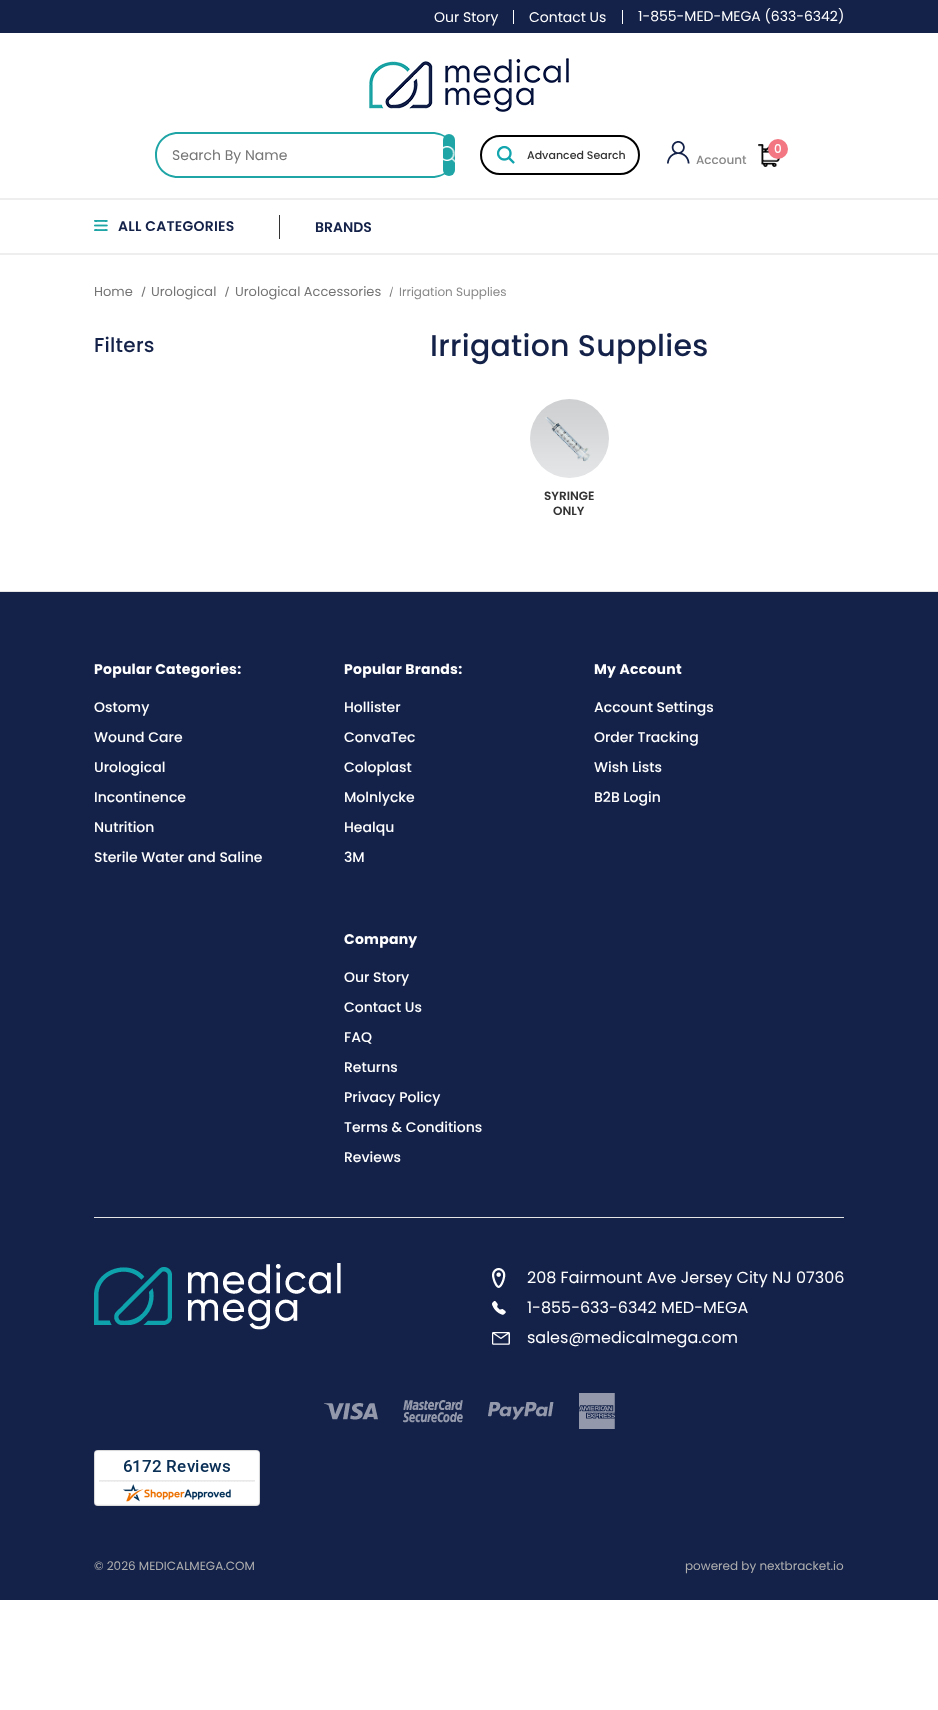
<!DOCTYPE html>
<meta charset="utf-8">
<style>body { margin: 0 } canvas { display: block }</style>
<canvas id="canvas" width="938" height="1710"></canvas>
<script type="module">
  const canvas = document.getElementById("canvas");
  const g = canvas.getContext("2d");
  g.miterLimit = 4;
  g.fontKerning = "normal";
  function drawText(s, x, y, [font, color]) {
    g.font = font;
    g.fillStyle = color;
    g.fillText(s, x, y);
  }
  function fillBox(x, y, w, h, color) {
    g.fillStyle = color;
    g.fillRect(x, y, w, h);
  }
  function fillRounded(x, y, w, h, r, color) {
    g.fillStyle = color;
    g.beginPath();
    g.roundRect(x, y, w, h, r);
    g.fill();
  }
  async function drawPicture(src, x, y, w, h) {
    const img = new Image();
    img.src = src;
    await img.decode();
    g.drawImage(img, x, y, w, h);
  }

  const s1 = ["14px Poppins", "#FFFFFF"];
  const s2 = ["14px Poppins", "#757575"];
  const s3 = ["500 11px Poppins", "#333333"];
  const s4 = ["500 12px Poppins", "#FFFFFF"];
  const s5 = ["500 12px Poppins", "#888888"];
  const s6 = ["600 14px Poppins", "#142249"];
  const s7 = ["13px Poppins", "#757575"];
  const s8 = ["12px Poppins", "#888888"];
  const s9 = ["500 20px Poppins", "#142249"];
  const s10 = ["500 30px Poppins", "#142249"];
  const s11 = ["600 12px Poppins", "#333333"];
  const s12 = ["bold 14px Poppins", "#FFFFFF"];
  const s13 = ["500 14px Poppins", "#FFFFFF"];
  const s14 = ["16px Poppins", "#FFFFFF"];
  const s15 = ["12px Poppins", "#AFAFAF"];

  fillBox(0, 0, 938, 1710, "#FFFFFF");
  fillBox(0, 0, 938, 33, "#142249");
  fillBox(513, 10, 1, 14, "#FFFFFF");
  drawText("Our Story", 434, 22, s1);
  fillBox(622, 10, 1, 14, "#FFFFFF");
  drawText("Contact Us", 529, 22, s1);
  drawText("1-855-MED-MEGA (633-6342)", 638, 21, s1);
  await drawPicture("pic1.png", 369, 58, 200, 54);
  g.fillStyle = "#20A5A6";
  g.beginPath();
  g.moveTo(178, 132);
  g.lineTo(432, 132);
  g.bezierCurveTo(445, 132, 455, 142, 455, 155);
  g.bezierCurveTo(455, 168, 445, 178, 432, 178);
  g.lineTo(178, 178);
  g.bezierCurveTo(165, 178, 155, 168, 155, 155);
  g.bezierCurveTo(155, 142, 165, 132, 178, 132);
  g.closePath();
  g.moveTo(178, 134);
  g.lineTo(432, 134);
  g.bezierCurveTo(445, 134, 455, 143, 455, 155);
  g.bezierCurveTo(455, 167, 445, 176, 432, 176);
  g.lineTo(178, 176);
  g.bezierCurveTo(166, 176, 157, 167, 157, 155);
  g.bezierCurveTo(157, 143, 166, 134, 178, 134);
  g.closePath();
  g.fill("evenodd");
  drawText("Search By Name", 172, 160, s2);
  fillRounded(443, 134, 12, 42, 6, "#20A5A6");
  await drawPicture("pic2.png", 443, 146, 12, 17);
  g.beginPath();
  g.roundRect(481, 136, 158, 38, 19);
  g.strokeStyle = "#000000";
  g.lineWidth = 2;
  g.stroke();
  await drawPicture("pic3.png", 497, 146, 18, 18);
  drawText("Advanced Search", 527, 159, s3);
  await drawPicture("pic4.png", 758, 144, 23, 23);
  g.fillStyle = "#F27782";
  g.beginPath();
  g.arc(778, 149, 10, 0, Math.PI * 2);
  g.fill();
  drawText("0", 774, 153, s4);
  await drawPicture("pic5.png", 667, 141, 23, 23);
  drawText("Account", 696, 164, s5);
  fillBox(0, 198, 938, 2, "#EEEEEE");
  fillBox(0, 253, 938, 2, "#EEEEEE");
  await drawPicture("pic6.png", 94, 220, 14, 11);
  g.letterSpacing = "0.25px";
  drawText("ALL CATEGORIES", 118, 231, s6);
  fillBox(279, 215, 1, 24, "#333333");
  g.letterSpacing = "0px";
  drawText("BRANDS", 315, 232, s6);
  drawText("Home", 94, 296, s7);
  g.beginPath();
  g.moveTo(144.5, 286.5);
  g.lineTo(145.5, 287);
  g.lineTo(142.5, 297);
  g.lineTo(141.5, 296.5);
  g.closePath();
  g.fill();
  drawText("Urological", 151, 296, s7);
  g.beginPath();
  g.moveTo(228, 286.5);
  g.lineTo(229, 287);
  g.lineTo(226, 297);
  g.lineTo(225, 296.5);
  g.closePath();
  g.fill();
  drawText("Urological Accessories", 235, 296, s7);
  g.beginPath();
  g.moveTo(392.5, 286.5);
  g.lineTo(393, 287);
  g.lineTo(390.5, 297);
  g.lineTo(389.5, 296.5);
  g.closePath();
  g.fill();
  drawText("Irrigation Supplies", 399, 296, s8);
  g.letterSpacing = "0.25px";
  drawText("Filters", 94, 352, s9);
  drawText("Irrigation Supplies", 430, 356, s10);
  await drawPicture("pic7.png", 530, 399, 79, 79);
  g.letterSpacing = "0px";
  drawText("SYRINGE", 544, 500, s11);
  drawText("ONLY", 553, 515, s11);
  fillBox(0, 592, 938, 1008, "#142249");
  fillBox(0, 591, 938, 1, "#E5E5E5");
  g.letterSpacing = "0.25px";
  drawText("Popular Categories:", 94, 674, s12);
  g.letterSpacing = "0px";
  drawText("Ostomy", 94, 712, s13);
  drawText("Wound Care", 94, 742, s13);
  drawText("Urological", 94, 772, s13);
  drawText("Incontinence", 94, 802, s13);
  drawText("Nutrition", 94, 832, s13);
  drawText("Sterile Water and Saline", 94, 862, s13);
  g.letterSpacing = "0.25px";
  drawText("Popular Brands:", 344, 674, s12);
  g.letterSpacing = "0px";
  drawText("Hollister", 344, 712, s13);
  drawText("ConvaTec", 344, 742, s13);
  drawText("Coloplast", 344, 772, s13);
  drawText("Molnlycke", 344, 802, s13);
  drawText("Healqu", 344, 832, s13);
  drawText("3M", 344, 862, s13);
  g.letterSpacing = "0.25px";
  drawText("My Account", 594, 674, s12);
  g.letterSpacing = "0px";
  drawText("Account Settings", 594, 712, s13);
  drawText("Order Tracking", 594, 742, s13);
  drawText("Wish Lists", 594, 772, s13);
  drawText("B2B Login", 594, 802, s13);
  g.letterSpacing = "0.25px";
  drawText("Company", 344, 944, s12);
  g.letterSpacing = "0px";
  drawText("Our Story", 344, 982, s13);
  drawText("Contact Us", 344, 1012, s13);
  drawText("FAQ", 344, 1042, s13);
  drawText("Returns", 344, 1072, s13);
  drawText("Privacy Policy", 344, 1102, s13);
  drawText("Terms & Conditions", 344, 1132, s13);
  drawText("Reviews", 344, 1162, s13);
  fillBox(94, 1217, 750, 1, "#E5E5E5");
  await drawPicture("pic8.png", 94, 1263, 247, 67);
  await drawPicture("pic9.png", 492, 1268, 14, 20);
  drawText("208 Fairmount Ave Jersey City NJ 07306", 527, 1283, s14);
  await drawPicture("pic10.png", 492, 1301, 14, 14);
  drawText("1-855-633-6342 MED-MEGA", 527, 1313, s14);
  await drawPicture("pic11.png", 492, 1332, 18, 13);
  drawText("sales@medicalmega.com", 527, 1343, s14);
  await drawPicture("pic12.png", 324, 1403, 54, 17);
  await drawPicture("pic13.png", 403, 1400, 60, 23);
  await drawPicture("pic14.png", 488, 1402, 66, 18);
  await drawPicture("pic15.png", 579, 1393, 36, 36);
  await drawPicture("pic16.png", 94, 1450, 166, 56);
  drawText("© 2026 MEDICALMEGA.COM", 94, 1570, s15);
  drawText("powered by nextbracket.io", 685, 1570, s15);
</script>
